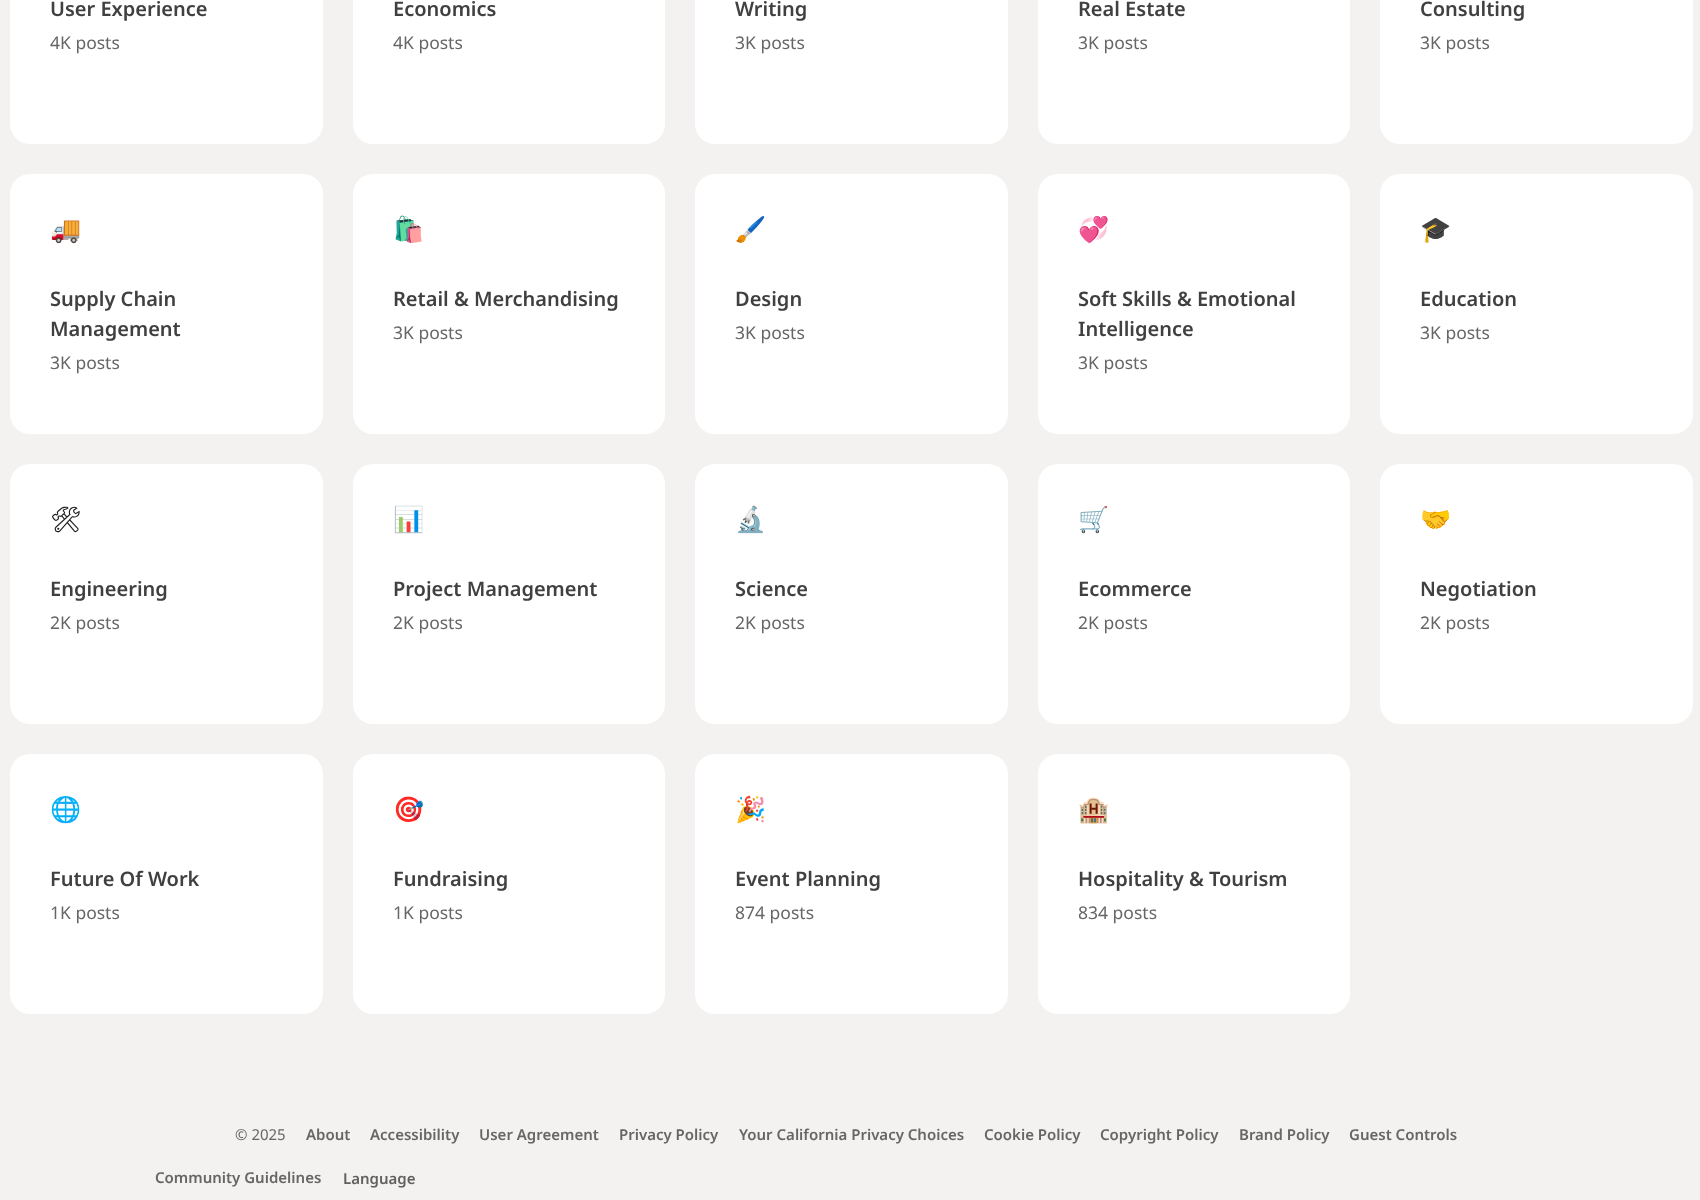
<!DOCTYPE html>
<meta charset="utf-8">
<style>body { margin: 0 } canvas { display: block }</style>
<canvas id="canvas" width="1700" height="1200"></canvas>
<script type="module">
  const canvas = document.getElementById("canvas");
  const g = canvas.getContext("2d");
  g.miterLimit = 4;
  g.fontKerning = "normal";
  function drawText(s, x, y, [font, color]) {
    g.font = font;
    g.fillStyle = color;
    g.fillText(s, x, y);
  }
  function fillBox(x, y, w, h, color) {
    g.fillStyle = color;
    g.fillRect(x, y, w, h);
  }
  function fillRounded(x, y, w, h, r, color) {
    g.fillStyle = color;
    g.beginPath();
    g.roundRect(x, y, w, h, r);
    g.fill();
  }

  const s1 = ["600 20px Noto Sans", "#404040"];
  const s2 = ["17.5px Noto Sans", "#666666"];
  const s3 = ["bold 25px Noto Color Emoji", "#1A1A1A"];
  const s4 = ["600 25px Noto Emoji", "#1A1A1A"];
  const s5 = ["15px Noto Sans", "#666666"];
  const s6 = ["600 15px Noto Sans", "#666666"];
  const s7 = ["600 15px Noto Sans", "#616160"];

  fillBox(0, 0, 1700, 1200, "#F3F2F0");
  fillRounded(10, -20, 313, 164, 20, "#FFFFFF");
  drawText("User Experience", 50, 16, s1);
  drawText("4K posts", 50, 49, s2);
  fillRounded(353, -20, 312, 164, 20, "#FFFFFF");
  drawText("Economics", 393, 16, s1);
  drawText("4K posts", 393, 49, s2);
  fillRounded(695, -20, 313, 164, 20, "#FFFFFF");
  drawText("Writing", 735, 16, s1);
  drawText("3K posts", 735, 49, s2);
  fillRounded(1038, -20, 312, 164, 20, "#FFFFFF");
  drawText("Real Estate", 1078, 16, s1);
  drawText("3K posts", 1078, 49, s2);
  fillRounded(1380, -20, 313, 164, 20, "#FFFFFF");
  drawText("Consulting", 1420, 16, s1);
  drawText("3K posts", 1420, 49, s2);
  fillRounded(10, 174, 313, 260, 20, "#FFFFFF");
  drawText("🚚", 50, 238, s3);
  drawText("Supply Chain", 50, 306, s1);
  drawText("Management", 50, 336, s1);
  drawText("3K posts", 50, 369, s2);
  fillRounded(353, 174, 312, 260, 20, "#FFFFFF");
  drawText("🛍️", 393, 238, s3);
  drawText("Retail & Merchandising", 393, 306, s1);
  drawText("3K posts", 393, 339, s2);
  fillRounded(695, 174, 313, 260, 20, "#FFFFFF");
  drawText("🖌️", 735, 238, s3);
  drawText("Design", 735, 306, s1);
  drawText("3K posts", 735, 339, s2);
  fillRounded(1038, 174, 312, 260, 20, "#FFFFFF");
  drawText("💞", 1078, 238, s3);
  drawText("Soft Skills & Emotional", 1078, 306, s1);
  drawText("Intelligence", 1078, 336, s1);
  drawText("3K posts", 1078, 369, s2);
  fillRounded(1380, 174, 313, 260, 20, "#FFFFFF");
  drawText("🎓", 1420, 238, s3);
  drawText("Education", 1420, 306, s1);
  drawText("3K posts", 1420, 339, s2);
  fillRounded(10, 464, 313, 260, 20, "#FFFFFF");
  drawText("🛠", 50, 528, s4);
  drawText("Engineering", 50, 596, s1);
  drawText("2K posts", 50, 629, s2);
  fillRounded(353, 464, 312, 260, 20, "#FFFFFF");
  drawText("📊", 393, 528, s3);
  drawText("Project Management", 393, 596, s1);
  drawText("2K posts", 393, 629, s2);
  fillRounded(695, 464, 313, 260, 20, "#FFFFFF");
  drawText("🔬", 735, 528, s3);
  drawText("Science", 735, 596, s1);
  drawText("2K posts", 735, 629, s2);
  fillRounded(1038, 464, 312, 260, 20, "#FFFFFF");
  drawText("🛒", 1078, 528, s3);
  drawText("Ecommerce", 1078, 596, s1);
  drawText("2K posts", 1078, 629, s2);
  fillRounded(1380, 464, 313, 260, 20, "#FFFFFF");
  drawText("🤝", 1420, 528, s3);
  drawText("Negotiation", 1420, 596, s1);
  drawText("2K posts", 1420, 629, s2);
  fillRounded(10, 754, 313, 260, 20, "#FFFFFF");
  drawText("🌐", 50, 818, s3);
  drawText("Future Of Work", 50, 886, s1);
  drawText("1K posts", 50, 919, s2);
  fillRounded(353, 754, 312, 260, 20, "#FFFFFF");
  drawText("🎯", 393, 818, s3);
  drawText("Fundraising", 393, 886, s1);
  drawText("1K posts", 393, 919, s2);
  fillRounded(695, 754, 313, 260, 20, "#FFFFFF");
  drawText("🎉", 735, 818, s3);
  drawText("Event Planning", 735, 886, s1);
  drawText("874 posts", 735, 919, s2);
  fillRounded(1038, 754, 312, 260, 20, "#FFFFFF");
  drawText("🏨", 1078, 818, s3);
  drawText("Hospitality & Tourism", 1078, 886, s1);
  drawText("834 posts", 1078, 919, s2);
  drawText("© 2025", 235, 1140, s5);
  drawText("About", 306, 1140, s6);
  drawText("Accessibility", 370, 1140, s6);
  drawText("User Agreement", 479, 1140, s6);
  drawText("Privacy Policy", 619, 1140, s6);
  drawText("Your California Privacy Choices", 739, 1140, s6);
  drawText("Cookie Policy", 984, 1140, s6);
  drawText("Copyright Policy", 1100, 1140, s6);
  drawText("Brand Policy", 1239, 1140, s6);
  drawText("Guest Controls", 1349, 1140, s6);
  drawText("Community Guidelines", 155, 1183, s6);
  drawText("Language", 343, 1184, s7);
</script>
